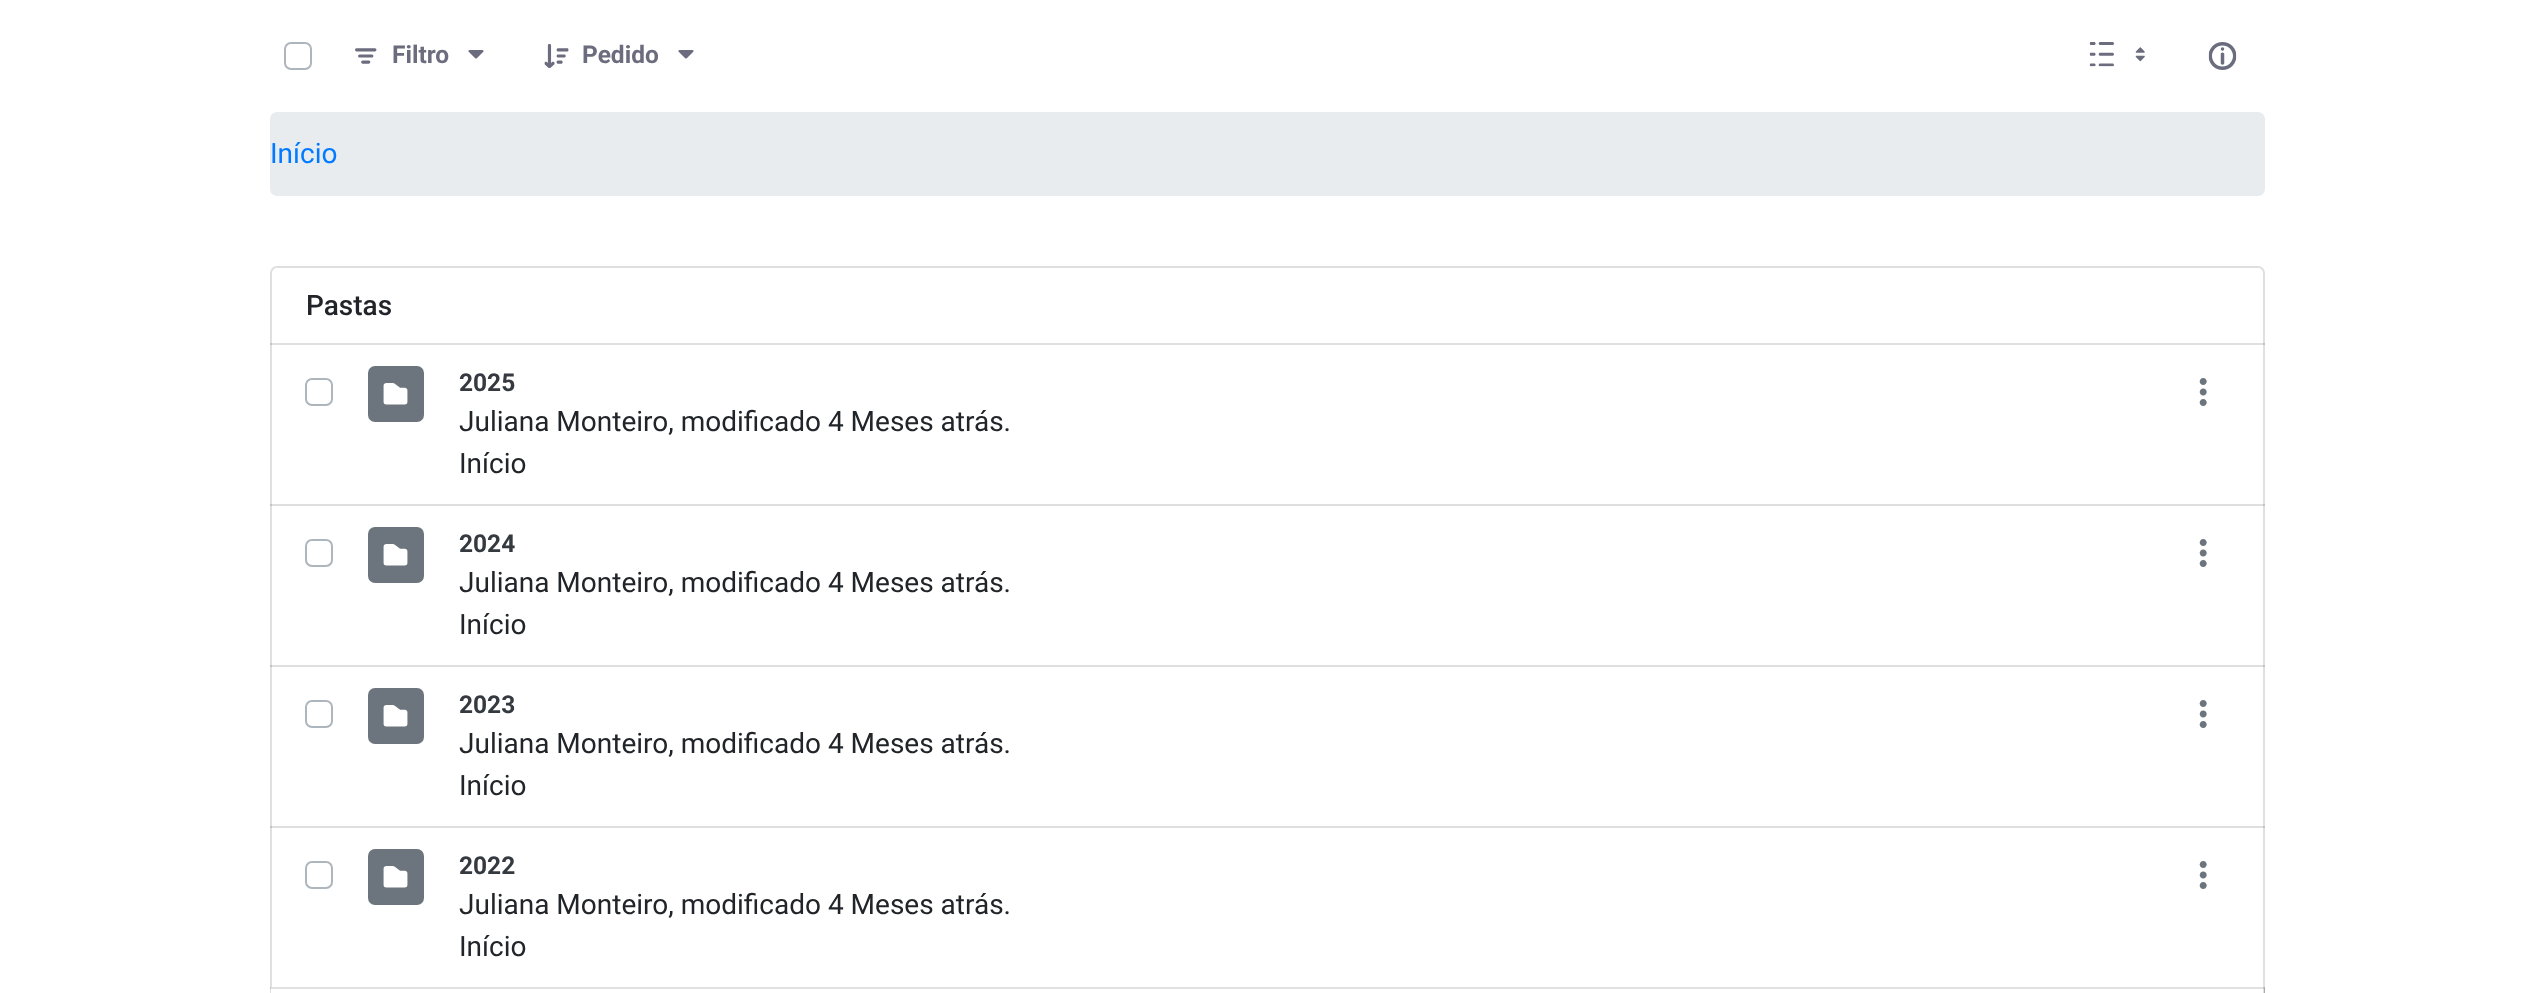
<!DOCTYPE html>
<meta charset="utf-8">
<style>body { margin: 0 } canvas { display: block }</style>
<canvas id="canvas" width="2534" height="993"></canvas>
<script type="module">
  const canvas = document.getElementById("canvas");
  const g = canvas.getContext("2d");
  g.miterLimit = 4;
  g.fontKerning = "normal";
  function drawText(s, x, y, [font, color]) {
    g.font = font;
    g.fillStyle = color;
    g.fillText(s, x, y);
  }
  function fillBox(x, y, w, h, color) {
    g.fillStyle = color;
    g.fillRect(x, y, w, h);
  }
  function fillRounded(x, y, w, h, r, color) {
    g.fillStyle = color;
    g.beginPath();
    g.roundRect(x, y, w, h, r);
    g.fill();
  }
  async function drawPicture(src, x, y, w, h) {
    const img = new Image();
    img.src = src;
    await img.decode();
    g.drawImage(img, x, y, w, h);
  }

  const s1 = ["bold 24.5px Roboto", "#6B6C7E"];
  const s2 = ["28px Roboto", "#007BFF"];
  const s3 = ["500 28px Roboto", "#212529"];
  const s4 = ["bold 24.5px Roboto", "#343A40"];
  const s5 = ["28px Roboto", "#212529"];

  fillBox(0, 0, 2534, 993, "#FFFFFF");
  g.beginPath();
  g.roundRect(285, 43, 26, 26, 6);
  g.strokeStyle = "#ADB5BD";
  g.lineWidth = 2;
  g.stroke();
  await drawPicture("pic1.png", 355, 48, 22, 16);
  drawText("Filtro", 392, 63, s1);
  await drawPicture("pic2.png", 468, 50, 16, 9);
  await drawPicture("pic3.png", 544, 44, 25, 24);
  drawText("Pedido", 582, 63, s1);
  await drawPicture("pic2.png", 678, 50, 16, 9);
  await drawPicture("pic4.png", 2089, 42, 25, 25);
  await drawPicture("pic5.png", 2135, 47, 10, 15);
  await drawPicture("pic6.png", 2208, 42, 29, 28);
  fillRounded(270, 112, 1995, 84, 7, "#E9ECEF");
  drawText("Início", 270, 163, s2);
  g.beginPath();
  g.roundRect(271, 267, 1993, 77, [6, 6, 0, 0]);
  g.strokeStyle = "#DFDFDF";
  g.stroke();
  drawText("Pastas", 306, 315, s3);
  fillBox(2263, 343, 2, 163, "rgba(0, 0, 0, 0.12)");
  fillBox(270, 343, 2, 163, "rgba(0, 0, 0, 0.12)");
  g.beginPath();
  g.roundRect(306, 379, 26, 26, 6);
  g.strokeStyle = "#ADB5BD";
  g.stroke();
  fillRounded(368, 366, 56, 56, 7, "#6C757D");
  await drawPicture("pic7.png", 383, 383, 25, 22);
  drawText("2025", 459, 391, s4);
  drawText("Juliana Monteiro, modificado 4 Meses atrás.", 459, 431, s5);
  drawText("Início", 459, 473, s5);
  await drawPicture("pic8.png", 2199, 378, 8, 28);
  fillBox(270, 504, 1995, 2, "#DFDFDF");
  fillBox(2263, 504, 2, 163, "rgba(0, 0, 0, 0.12)");
  fillBox(270, 504, 2, 163, "rgba(0, 0, 0, 0.12)");
  g.beginPath();
  g.roundRect(306, 540, 26, 26, 6);
  g.stroke();
  fillRounded(368, 527, 56, 56, 7, "#6C757D");
  await drawPicture("pic7.png", 383, 544, 25, 22);
  drawText("2024", 459, 552, s4);
  drawText("Juliana Monteiro, modificado 4 Meses atrás.", 459, 592, s5);
  drawText("Início", 459, 634, s5);
  await drawPicture("pic8.png", 2199, 539, 8, 28);
  fillBox(270, 665, 1995, 2, "#DFDFDF");
  fillBox(2263, 665, 2, 163, "rgba(0, 0, 0, 0.12)");
  fillBox(270, 665, 2, 163, "rgba(0, 0, 0, 0.12)");
  g.beginPath();
  g.roundRect(306, 701, 26, 26, 6);
  g.stroke();
  fillRounded(368, 688, 56, 56, 7, "#6C757D");
  await drawPicture("pic7.png", 383, 705, 25, 22);
  drawText("2023", 459, 713, s4);
  drawText("Juliana Monteiro, modificado 4 Meses atrás.", 459, 753, s5);
  drawText("Início", 459, 795, s5);
  await drawPicture("pic8.png", 2199, 700, 8, 28);
  fillBox(270, 826, 1995, 2, "#DFDFDF");
  fillBox(2263, 826, 2, 163, "rgba(0, 0, 0, 0.12)");
  fillBox(270, 826, 2, 163, "rgba(0, 0, 0, 0.12)");
  g.beginPath();
  g.roundRect(306, 862, 26, 26, 6);
  g.stroke();
  fillRounded(368, 849, 56, 56, 7, "#6C757D");
  await drawPicture("pic7.png", 383, 866, 25, 22);
  drawText("2022", 459, 874, s4);
  drawText("Juliana Monteiro, modificado 4 Meses atrás.", 459, 914, s5);
  drawText("Início", 459, 956, s5);
  await drawPicture("pic8.png", 2199, 861, 8, 28);
  fillBox(270, 987, 1995, 2, "#FFFFFF");
  g.fillStyle = "#DFDFDF";
  g.beginPath();
  g.moveTo(270, 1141);
  g.lineTo(270, 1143);
  g.bezierCurveTo(270, 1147, 273, 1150, 277, 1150);
  g.lineTo(2258, 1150);
  g.bezierCurveTo(2262, 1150, 2265, 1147, 2265, 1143);
  g.lineTo(2265, 987);
  g.lineTo(2264, 987);
  g.lineTo(2264, 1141);
  g.bezierCurveTo(2264, 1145, 2261, 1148, 2258, 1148);
  g.lineTo(276, 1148);
  g.bezierCurveTo(273, 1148, 270, 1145, 270, 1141);
  g.closePath();
  g.fill();
  g.fillStyle = "rgba(0, 0, 0, 0.12)";
  g.beginPath();
  g.moveTo(270, 989);
  g.lineTo(2264, 989);
  g.lineTo(2264, 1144);
  g.lineTo(2263, 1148);
  g.bezierCurveTo(2264, 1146, 2265, 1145, 2265, 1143);
  g.lineTo(2265, 987);
  g.lineTo(270, 987);
  g.closePath();
  g.fill();
  g.beginPath();
  g.moveTo(2256, 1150);
  g.lineTo(2258, 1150);
  g.bezierCurveTo(2262, 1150, 2265, 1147, 2265, 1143);
  g.lineTo(2265, 987);
  g.lineTo(2263, 987);
  g.lineTo(2263, 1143);
  g.bezierCurveTo(2263, 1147, 2260, 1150, 2256, 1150);
  g.closePath();
  g.fill();
  g.beginPath();
  g.moveTo(270, 987);
  g.lineTo(270, 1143);
  g.bezierCurveTo(270, 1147, 273, 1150, 277, 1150);
  g.lineTo(278, 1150);
  g.bezierCurveTo(274, 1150, 271, 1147, 271, 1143);
  g.lineTo(271, 987);
  g.closePath();
  g.fill();
</script>
